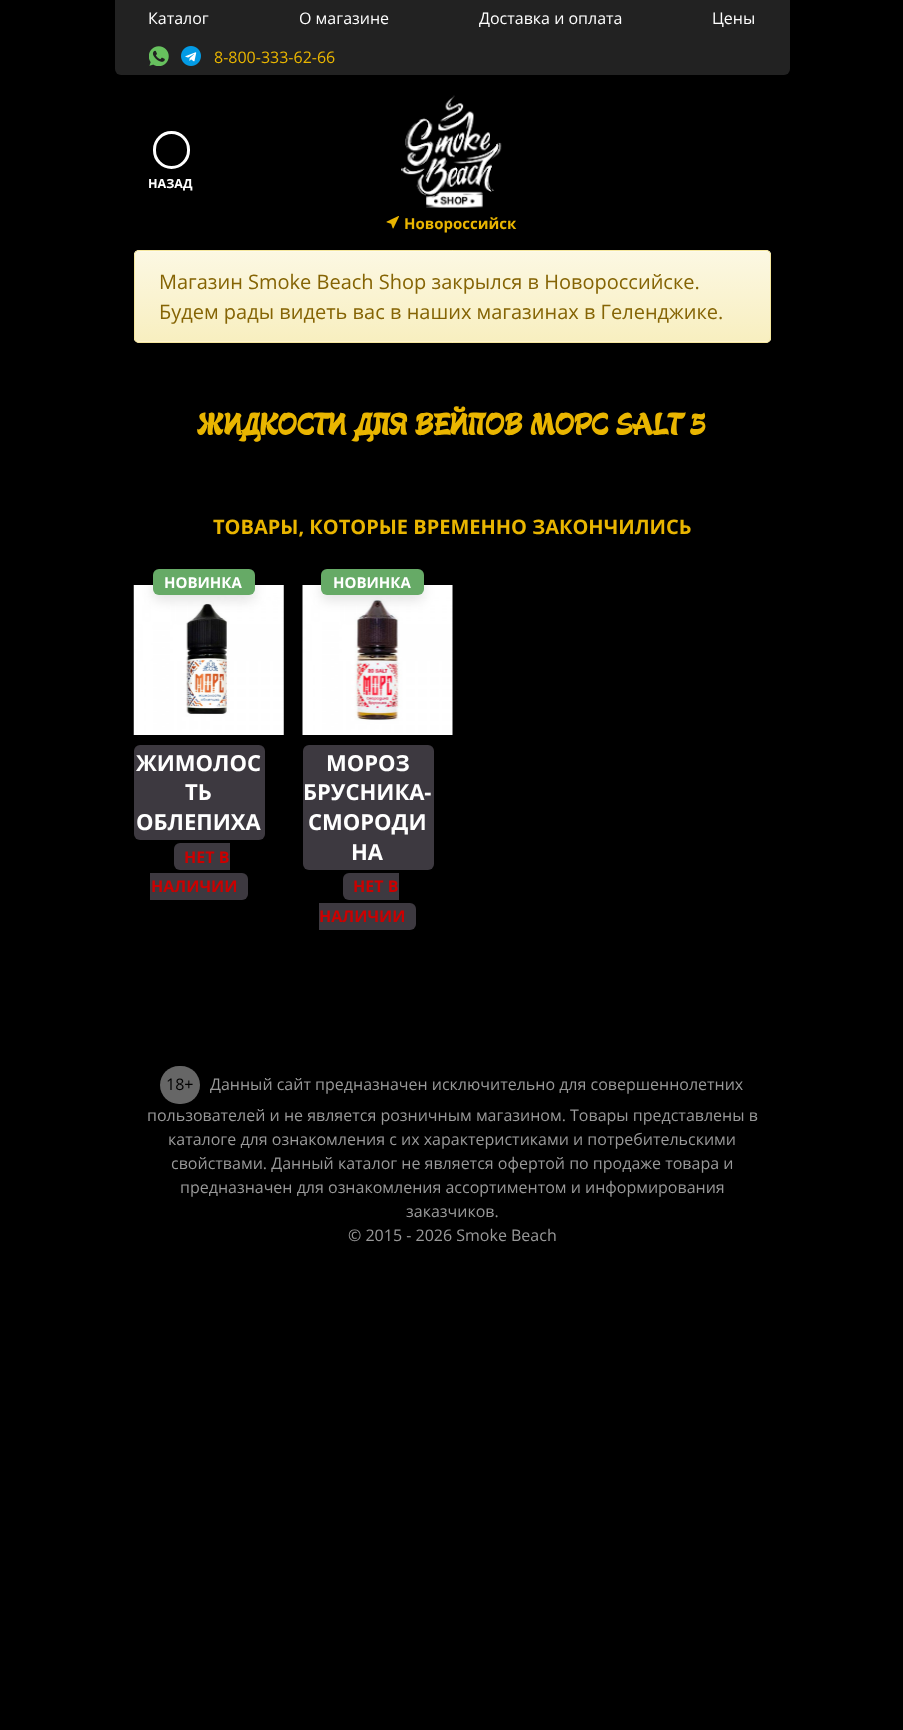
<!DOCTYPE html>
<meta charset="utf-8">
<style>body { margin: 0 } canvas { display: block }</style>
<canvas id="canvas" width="903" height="1730"></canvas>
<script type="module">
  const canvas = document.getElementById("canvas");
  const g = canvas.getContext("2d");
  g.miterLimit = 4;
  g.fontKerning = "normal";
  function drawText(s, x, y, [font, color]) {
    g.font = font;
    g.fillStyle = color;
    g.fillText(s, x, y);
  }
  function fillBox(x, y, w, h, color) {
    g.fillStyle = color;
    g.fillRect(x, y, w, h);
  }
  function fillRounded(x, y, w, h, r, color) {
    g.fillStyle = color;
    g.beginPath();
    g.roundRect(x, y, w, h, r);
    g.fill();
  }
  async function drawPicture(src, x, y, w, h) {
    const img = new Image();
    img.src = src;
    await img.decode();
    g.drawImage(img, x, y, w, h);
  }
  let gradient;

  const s1 = ["16px Open Sans", "#FFFFFF"];
  const s2 = ["16px Open Sans", "#E9B500"];
  const s3 = ["bold 12.5px Open Sans", "#FFFFFF"];
  const s4 = ["bold 15px Open Sans", "#E9B500"];
  const s5 = ["20px Open Sans", "#856404"];
  const s6 = ["32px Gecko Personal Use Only", "#E9B500"];
  const s7 = ["bold 20px Open Sans", "#E9B500"];
  const s8 = ["bold 15px Open Sans", "#FFFFFF"];
  const s9 = ["bold 22px Open Sans", "#FFFFFF"];
  const s10 = ["bold 16px Open Sans", "#CC0000"];
  const s11 = ["16px Open Sans", "#000000"];
  const s12 = ["16px Open Sans", "#999999"];

  fillBox(0, 0, 903, 1730, "#000000");
  g.fillStyle = "#222222";
  g.beginPath();
  g.roundRect(115, 0, 675, 75, [0, 0, 6, 6]);
  g.fill();
  drawText("Каталог", 148, 24, s1);
  drawText("О магазине", 299, 24, s1);
  drawText("Доставка и оплата", 479, 24, s1);
  drawText("Цены", 712, 24, s1);
  await drawPicture("pic1.png", 149, 46, 20, 20);
  await drawPicture("pic2.png", 181, 46, 20, 20);
  drawText("8-800-333-62-66", 214, 63, s2);
  g.beginPath();
  g.roundRect(154.5, 132.5, 34, 35, 17);
  g.strokeStyle = "#FFFFFF";
  g.lineWidth = 3;
  g.stroke();
  drawText("НАЗАД", 148, 188, s3);
  await drawPicture("pic3.png", 401, 95, 101, 113);
  await drawPicture("pic4.png", 386, 216, 13, 13);
  drawText("Новороссийск", 404, 229, s4);
  fillRounded(134, 250, 637, 93, 5, "#FFF3CD");
  g.save();
  g.beginPath();
  g.roundRect(134, 250, 637, 93, 5);
  g.clip();
  gradient = g.createLinearGradient(453, 251, 453, 341);
  gradient.addColorStop(0, "#FCF8E3");
  gradient.addColorStop(1, "#F8EFC0");
  g.fillStyle = gradient;
  g.fillRect(134, 251, 637, 90);
  g.restore();
  g.fillStyle = "#FDFAEA";
  g.beginPath();
  g.moveTo(139, 252);
  g.lineTo(766, 252);
  g.bezierCurveTo(768, 252, 770, 254, 770, 256);
  g.bezierCurveTo(770, 253, 769, 251, 766, 251);
  g.lineTo(139, 251);
  g.bezierCurveTo(136, 251, 135, 253, 135, 256);
  g.bezierCurveTo(135, 254, 137, 252, 139, 252);
  g.closePath();
  g.fill();
  g.beginPath();
  g.roundRect(134.5, 250.5, 636, 92, 4.5);
  g.strokeStyle = "#F5E79E";
  g.lineWidth = 1;
  g.stroke();
  drawText("Магазин Smoke Beach Shop закрылся в Новороссийске.", 159, 289, s5);
  drawText("Будем рады видеть вас в наших магазинах в Геленджике.", 159, 319, s5);
  drawText("ЖИДКОСТИ ДЛЯ ВЕЙПОВ МОРС SALT 5", 198, 435, s6);
  drawText("ТОВАРЫ, КОТОРЫЕ ВРЕМЕННО ЗАКОНЧИЛИСЬ", 213, 534, s7);
  await drawPicture("pic5.png", 133, 585, 151, 150);
  g.fillStyle = "rgba(0, 0, 0, 0.1)";
  g.filter = "blur(6px)";
  g.beginPath();
  g.roundRect(153, 575, 102, 26, 6);
  g.fill();
  g.filter = "none";
  fillRounded(153, 569, 102, 26, 6, "#66AA66");
  drawText("НОВИНКА", 164, 588, s8);
  fillRounded(134, 745, 131, 95, 6, "#3D3940");
  drawText("ЖИМОЛОС", 136, 771, s9);
  drawText("ТЬ", 185, 800, s9);
  drawText("ОБЛЕПИХА", 136, 830, s9);
  g.fillStyle = "#3D3940";
  g.beginPath();
  g.roundRect(174, 843, 56, 27, [6, 0, 0, 6]);
  g.fill();
  drawText("НЕТ В", 184, 863, s10);
  g.fillStyle = "#3D3940";
  g.beginPath();
  g.roundRect(150, 873, 98, 27, [0, 6, 6, 0]);
  g.fill();
  drawText("НАЛИЧИИ", 151, 892, s10);
  await drawPicture("pic6.png", 302, 585, 151, 150);
  g.fillStyle = "rgba(0, 0, 0, 0.1)";
  g.filter = "blur(6px)";
  g.beginPath();
  g.roundRect(321, 575, 103, 26, 6);
  g.fill();
  g.filter = "none";
  fillRounded(321, 569, 103, 26, 6, "#66AA66");
  drawText("НОВИНКА", 333, 588, s8);
  fillRounded(303, 745, 131, 125, 6, "#3D3940");
  drawText("МОРОЗ", 326, 771, s9);
  drawText("БРУСНИКА-", 303, 800, s9);
  drawText("СМОРОДИ", 308, 830, s9);
  drawText("НА", 351, 860, s9);
  g.fillStyle = "#3D3940";
  g.beginPath();
  g.roundRect(343, 873, 56, 27, [6, 0, 0, 6]);
  g.fill();
  drawText("НЕТ В", 353, 892, s10);
  g.fillStyle = "#3D3940";
  g.beginPath();
  g.roundRect(319, 903, 97, 27, [0, 6, 6, 0]);
  g.fill();
  drawText("НАЛИЧИИ", 319, 922, s10);
  fillRounded(160, 1066, 40, 38, 19, "#666666");
  drawText("18+", 166, 1090, s11);
  drawText("Данный сайт предназначен исключительно для совершеннолетних", 210, 1090, s12);
  drawText("пользователей и не является розничным магазином. Товары представлены в", 147, 1121, s12);
  drawText("каталоге для ознакомления с их характеристиками и потребительскими", 168, 1145, s12);
  drawText("свойствами. Данный каталог не является офертой по продаже товара и", 171, 1169, s12);
  drawText("предназначен для ознакомления ассортиментом и информирования", 180, 1193, s12);
  drawText("заказчиков.", 406, 1217, s12);
  drawText("© 2015 - 2026 Smoke Beach", 348, 1241, s12);
</script>
